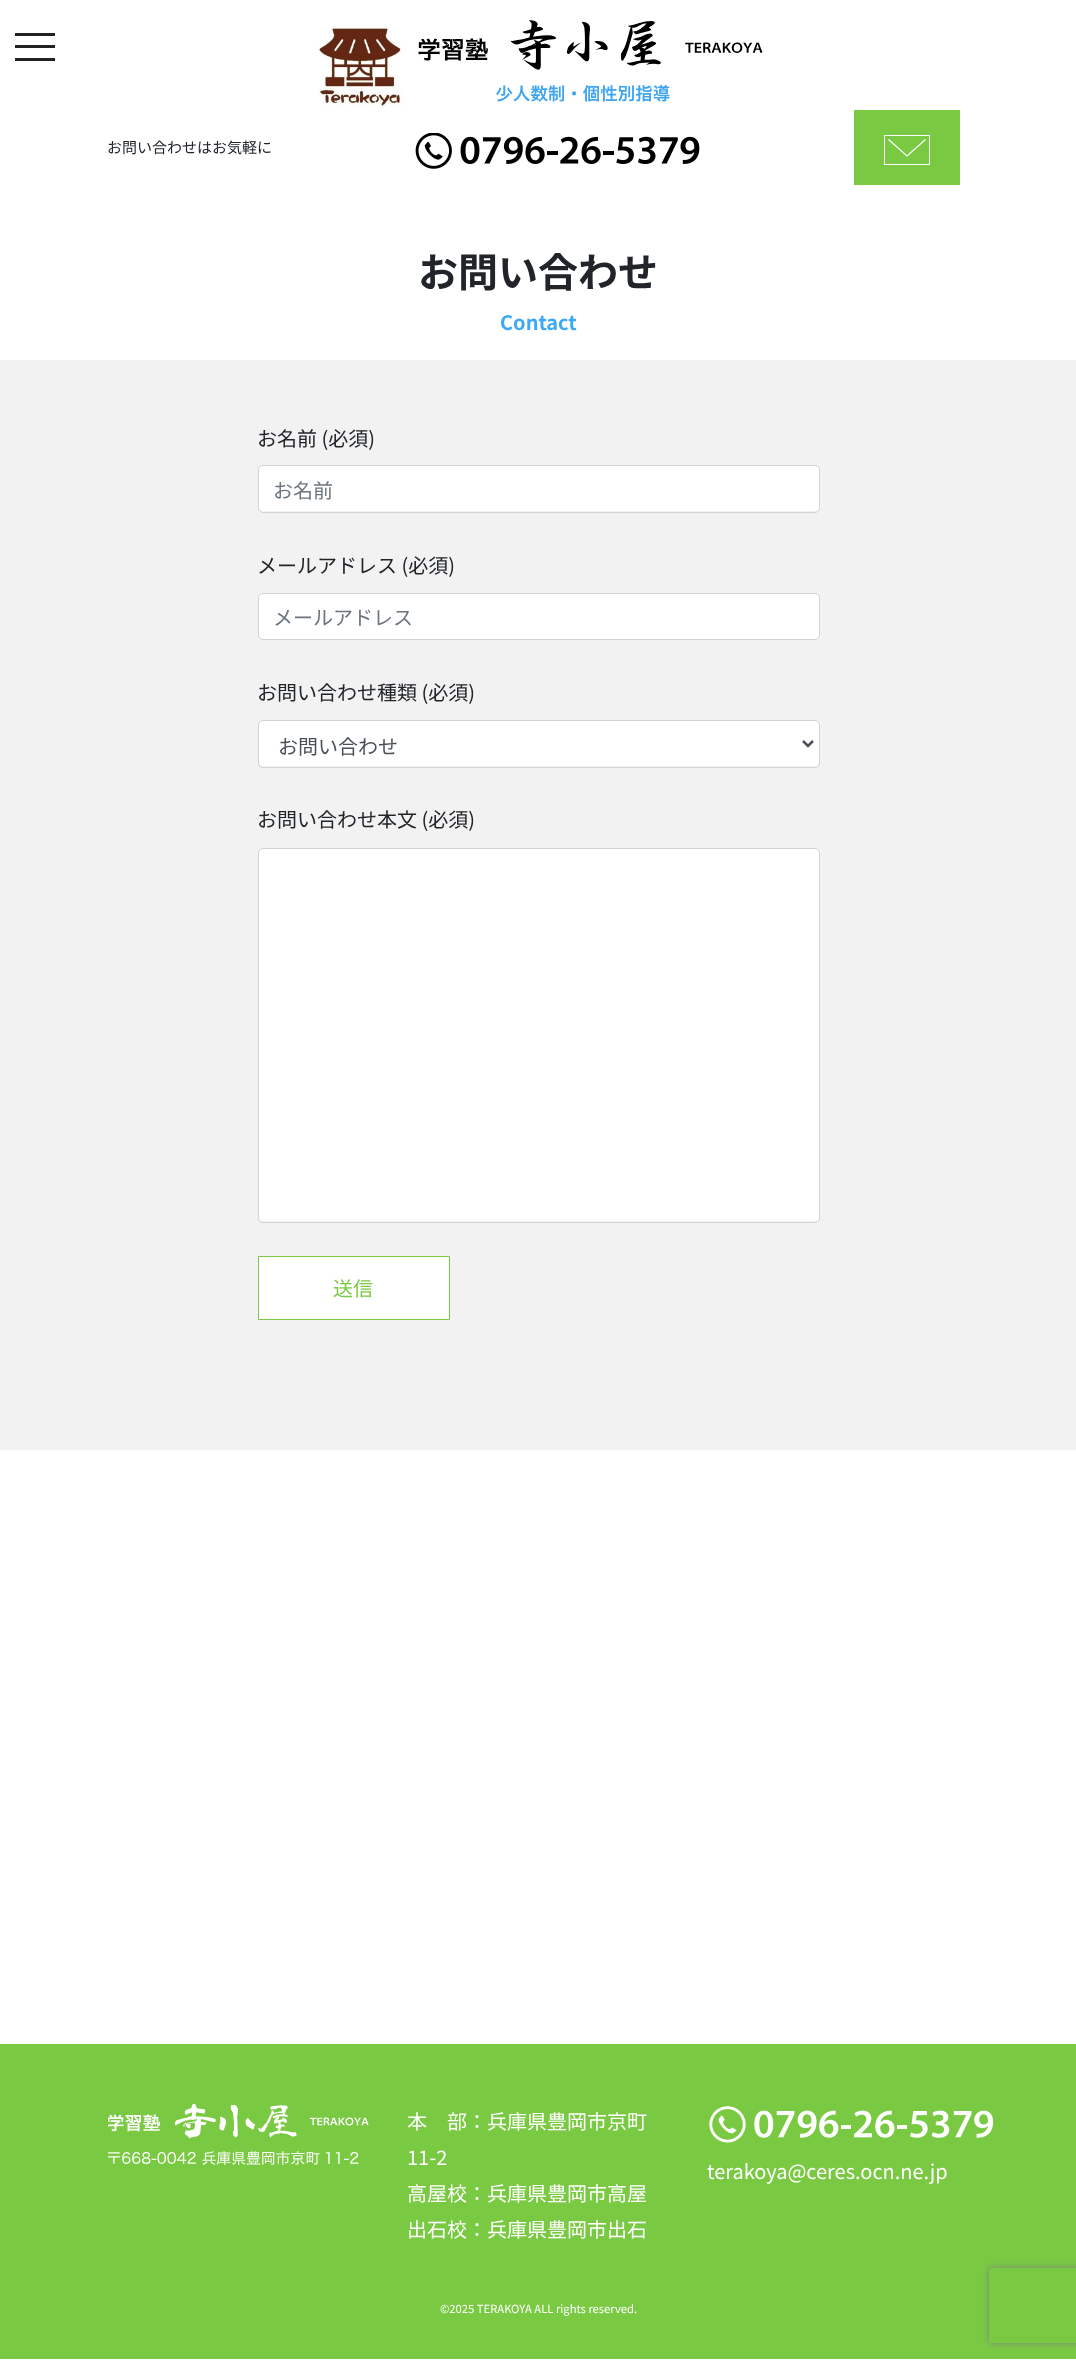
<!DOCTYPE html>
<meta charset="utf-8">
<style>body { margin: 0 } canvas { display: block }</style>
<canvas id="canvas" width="1076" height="2360"></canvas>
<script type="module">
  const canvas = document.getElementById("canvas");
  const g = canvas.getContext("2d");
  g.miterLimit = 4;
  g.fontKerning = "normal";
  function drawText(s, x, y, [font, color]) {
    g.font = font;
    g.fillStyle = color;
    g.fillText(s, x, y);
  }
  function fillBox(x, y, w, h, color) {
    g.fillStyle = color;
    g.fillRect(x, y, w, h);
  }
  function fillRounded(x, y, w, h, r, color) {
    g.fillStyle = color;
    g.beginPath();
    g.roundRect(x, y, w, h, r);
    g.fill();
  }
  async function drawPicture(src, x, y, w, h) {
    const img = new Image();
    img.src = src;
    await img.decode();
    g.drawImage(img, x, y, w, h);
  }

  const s1 = ["15px Noto Sans JP", "#212529"];
  const s2 = ["bold 40px Noto Sans JP", "#212529"];
  const s3 = ["bold 20px Noto Sans JP", "#3FA9F5"];
  const s4 = ["20px Noto Sans JP", "#212529"];
  const s5 = ["20px Noto Sans JP", "#6C757D"];
  const s6 = ["20px Noto Sans JP", "#495057"];
  const s7 = ["20px Noto Sans JP", "#7AC943"];
  const s8 = ["20px Noto Sans JP", "#FFFFFF"];
  const s9 = ["11.25px Noto Sans JP", "#FFFFFF"];

  fillBox(0, 0, 1076, 2360, "#FFFFFF");
  fillBox(15, 45, 40, 3, "#222222");
  fillBox(15, 33, 40, 3, "#222222");
  fillBox(15, 58, 40, 3, "#222222");
  await drawPicture("pic1.png", 318, 20, 445, 87);
  drawText("お問い合わせはお気軽に", 107, 153, s1);
  await drawPicture("pic2.png", 415, 133, 285, 36);
  fillBox(854, 110, 106, 75, "#7AC943");
  g.strokeStyle = "#FFFFFF";
  g.strokeRect(884.5, 135.5, 45, 29);
  g.beginPath();
  g.moveTo(888.5, 139.5);
  g.lineTo(907, 156);
  g.lineTo(925.5, 139.5);
  g.lineWidth = 1.2;
  g.stroke();
  drawText("お問い合わせ", 418, 287, s2);
  drawText("Contact", 500, 330, s3);
  fillBox(0, 360, 1076, 1090, "#F2F2F2");
  drawText("お名前 (必須)", 257, 446, s4);
  fillRounded(259, 466, 560, 45, 4, "#FFFFFF");
  g.beginPath();
  g.roundRect(258.5, 465.5, 561, 47, 4.5);
  g.strokeStyle = "#CED4DA";
  g.lineWidth = 1;
  g.stroke();
  drawText("お名前", 273, 498, s5);
  drawText("メールアドレス (必須)", 257, 573, s4);
  g.fillStyle = "#FFFFFF";
  g.beginPath();
  g.roundRect(258.5, 593.5, 561, 46, 4.5);
  g.fill();
  g.stroke();
  drawText("メールアドレス", 273, 625, s5);
  drawText("お問い合わせ種類 (必須)", 257, 700, s4);
  fillRounded(259, 721, 560, 45, 4, "#FFFFFF");
  g.beginPath();
  g.roundRect(258.5, 720.5, 561, 47, 4.5);
  g.stroke();
  g.beginPath();
  g.moveTo(803, 741);
  g.lineTo(808, 746);
  g.lineTo(813, 741);
  g.strokeStyle = "#495057";
  g.lineWidth = 2.5;
  g.stroke();
  drawText("お問い合わせ", 278, 754, s6);
  drawText("お問い合わせ本文 (必須)", 257, 827, s4);
  fillRounded(259, 849, 560, 372, 4, "#FFFFFF");
  g.beginPath();
  g.roundRect(258.5, 848.5, 561, 374, 4.5);
  g.strokeStyle = "#CED4DA";
  g.lineWidth = 1;
  g.stroke();
  g.beginPath();
  g.rect(258.5, 1256.5, 191, 63);
  g.fill();
  g.strokeStyle = "#7AC943";
  g.stroke();
  drawText("送信", 333, 1296, s7);
  fillBox(0, 2044, 1076, 315, "#7AC943");
  await drawPicture("pic3.png", 108, 2104, 261, 61);
  drawText("本　部：兵庫県豊岡市京町", 407, 2129, s8);
  drawText("11-2", 407, 2165, s8);
  drawText("高屋校：兵庫県豊岡市高屋", 407, 2201, s8);
  drawText("出石校：兵庫県豊岡市出石", 407, 2237, s8);
  await drawPicture("pic4.png", 709, 2106, 285, 37);
  drawText("terakoya@ceres.ocn.ne.jp", 707, 2179, s8);
  drawText("©2025 TERAKOYA ALL rights reserved.", 440, 2313, s9);
  g.save();
  g.beginPath();
  g.moveTo(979, 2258);
  g.lineTo(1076, 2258);
  g.lineTo(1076, 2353);
  g.lineTo(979, 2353);
  g.closePath();
  g.moveTo(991.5, 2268);
  g.lineTo(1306.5, 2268);
  g.bezierCurveTo(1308, 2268, 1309, 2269, 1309, 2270.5);
  g.lineTo(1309, 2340.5);
  g.bezierCurveTo(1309, 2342, 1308, 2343, 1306.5, 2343);
  g.lineTo(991.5, 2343);
  g.bezierCurveTo(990, 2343, 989, 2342, 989, 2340.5);
  g.lineTo(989, 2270.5);
  g.bezierCurveTo(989, 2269, 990, 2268, 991.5, 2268);
  g.closePath();
  g.clip("evenodd");
  g.fillStyle = "#808080";
  g.filter = "blur(3px)";
  g.beginPath();
  g.roundRect(989, 2268, 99, 75, 2.5);
  g.fill();
  g.filter = "none";
  g.restore();
</script>
